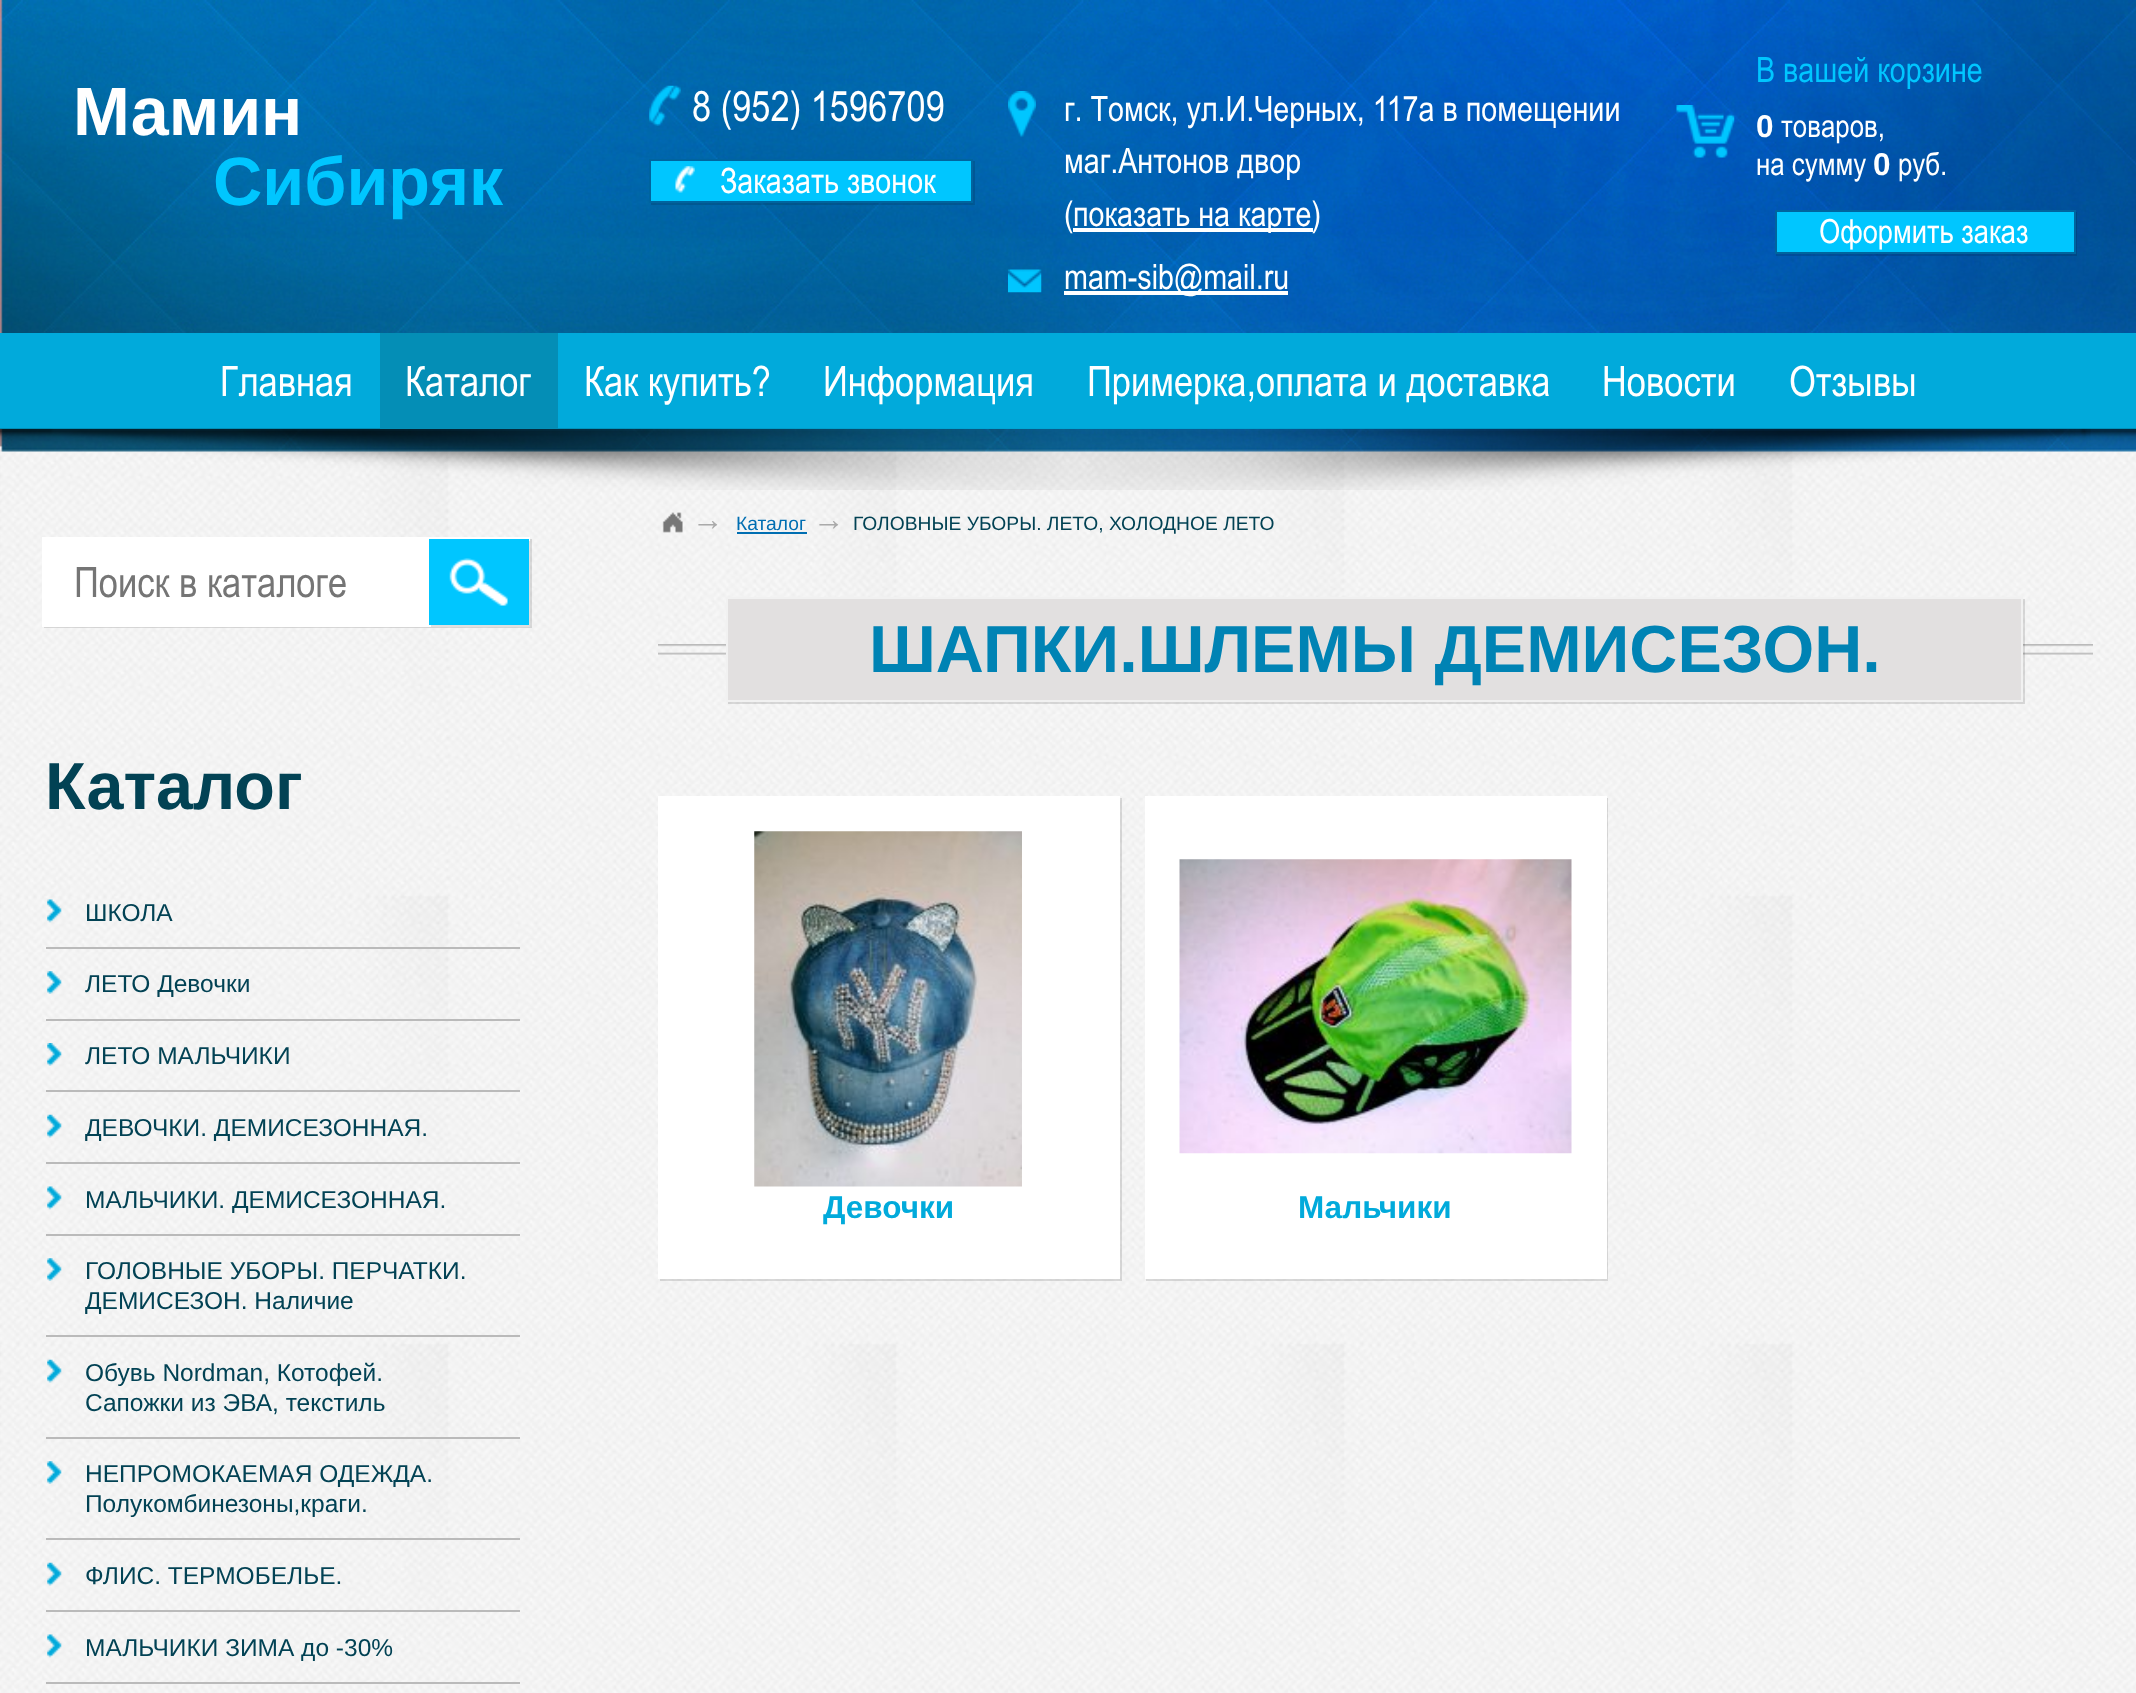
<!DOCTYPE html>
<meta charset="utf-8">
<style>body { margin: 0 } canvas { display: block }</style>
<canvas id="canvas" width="2136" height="1693"></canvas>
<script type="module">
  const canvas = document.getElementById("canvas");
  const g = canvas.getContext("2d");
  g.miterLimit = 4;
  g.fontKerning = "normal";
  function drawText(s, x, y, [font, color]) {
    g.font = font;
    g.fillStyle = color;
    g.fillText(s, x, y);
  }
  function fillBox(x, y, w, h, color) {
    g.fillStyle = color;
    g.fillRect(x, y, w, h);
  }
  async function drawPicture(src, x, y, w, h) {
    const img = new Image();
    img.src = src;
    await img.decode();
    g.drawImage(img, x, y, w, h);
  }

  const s1 = ["bold 68.25px Liberation Sans", "#FFFFFF"];
  const s2 = ["bold 68.25px Liberation Sans", "#00C6FF"];
  const s3 = ["42px Arial", "#FFFFFF"];
  const s4 = ["35px Arial", "#FFFFFF"];
  const s5 = ["35px Arial", "#00C6FF"];
  const s6 = ["bold 31.5px Liberation Sans", "#FFFFFF"];
  const s7 = ["31.5px Arial", "#FFFFFF"];
  const s8 = ["33.25px Arial", "#FFFFFF"];
  const s9 = ["42px Arial", "#757575"];
  const s10 = ["bold 66.5px Liberation Sans", "#024254"];
  const s11 = ["24.5px Liberation Sans", "#024254"];
  const s12 = ["italic 31.5px Liberation Sans", "#AAAAAA"];
  const s13 = ["19.25px Liberation Sans", "#006EB2"];
  const s14 = ["19.25px Liberation Sans", "#024254"];
  const s15 = ["bold 66.5px Liberation Sans", "#0083B4"];
  const s16 = ["bold 31.5px Liberation Sans", "#01AADB"];

  fillBox(0, 0, 2136, 1693, "#FFFFFF");
  await drawPicture("pic1.png", 0, 451, 2136, 1242);
  await drawPicture("pic2.png", 0, 0, 2136, 452);
  drawText("Мамин", 73, 135, s1);
  drawText("Сибиряк", 213, 205, s2);
  await drawPicture("pic3.png", 649, 85, 32, 41);
  drawText("8 (952) 1596709", 692, 121, s3);
  g.fillStyle = "rgba(0, 0, 0, 0.12)";
  g.beginPath();
  g.moveTo(651, 203);
  g.lineTo(651, 205);
  g.lineTo(975, 205);
  g.lineTo(975, 161);
  g.lineTo(973, 161);
  g.lineTo(973, 203);
  g.closePath();
  g.fill();
  fillBox(651, 161, 320, 40, "#00C6FF");
  await drawPicture("pic4.png", 675, 166, 20, 27);
  g.strokeStyle = "#00649F";
  g.lineWidth = 2;
  g.strokeRect(650, 160, 322, 42);
  drawText("Заказать звонок", 720, 193, s4);
  await drawPicture("pic5.png", 1008, 91, 28, 46);
  drawText("г. Томск, ул.И.Черных, 117а в помещении", 1064, 121, s4);
  drawText("маг.Антонов двор", 1064, 173, s4);
  drawText("(", 1064, 226, s4);
  fillBox(1073, 228, 240, 4, "#FFFFFF");
  drawText("показать на карте)", 1073, 226, s4);
  await drawPicture("pic6.png", 1008, 269, 34, 24);
  fillBox(1064, 291, 224, 4, "#FFFFFF");
  drawText("mam-sib@mail.ru", 1064, 289, s4);
  await drawPicture("pic7.png", 1676, 105, 59, 53);
  drawText("В вашей корзине", 1756, 82, s5);
  drawText("0", 1756, 137, s6);
  drawText("товаров,", 1781, 137, s7);
  drawText("на сумму", 1756, 175, s7);
  drawText("0", 1873, 175, s6);
  drawText("руб.", 1898, 175, s7);
  g.fillStyle = "rgba(0, 0, 0, 0.12)";
  g.beginPath();
  g.moveTo(1776, 254);
  g.lineTo(1776, 256);
  g.lineTo(2077, 256);
  g.lineTo(2077, 212);
  g.lineTo(2076, 212);
  g.lineTo(2076, 254);
  g.closePath();
  g.fill();
  g.fillStyle = "#00C6FF";
  g.beginPath();
  g.rect(1776, 211, 299, 42);
  g.fill();
  g.stroke();
  drawText("Оформить заказ", 1819, 243, s8);
  fillBox(0, 333, 2136, 96, "#01AADB");
  drawText("Главная", 220, 396, s3);
  await drawPicture("pic8.png", 0, 428, 2136, 62);
  fillBox(380, 333, 178, 96, "#048EB6");
  drawText("Каталог", 405, 396, s3);
  drawText("Как купить?", 584, 396, s3);
  drawText("Информация", 823, 396, s3);
  drawText("Примерка,оплата и доставка", 1087, 396, s3);
  drawText("Новости", 1602, 396, s3);
  drawText("Отзывы", 1789, 396, s3);
  g.fillStyle = "rgba(0, 0, 0, 0.12)";
  g.beginPath();
  g.moveTo(44, 626);
  g.lineTo(44, 628);
  g.lineTo(532, 628);
  g.lineTo(532, 539);
  g.lineTo(530, 539);
  g.lineTo(530, 626);
  g.closePath();
  g.fill();
  fillBox(42, 537, 488, 90, "#FFFFFF");
  drawText("Поиск в каталоге", 74, 597, s9);
  g.fillStyle = "#E0E0E0";
  g.beginPath();
  g.moveTo(431, 625);
  g.lineTo(431, 627);
  g.lineTo(530, 627);
  g.lineTo(530, 541);
  g.lineTo(528, 541);
  g.lineTo(528, 625);
  g.closePath();
  g.fill();
  fillBox(429, 539, 100, 86, "#00C6FF");
  await drawPicture("pic9.png", 449, 558, 59, 48);
  drawText("Каталог", 45, 809, s10);
  await drawPicture("pic10.png", 47, 899, 15, 24);
  drawText("ШКОЛА", 85, 921, s11);
  fillBox(46, 947, 474, 2, "#BABABA");
  await drawPicture("pic11.png", 47, 971, 15, 23);
  drawText("ЛЕТО Девочки", 85, 992, s11);
  fillBox(46, 1019, 474, 2, "#BABABA");
  await drawPicture("pic12.png", 47, 1043, 15, 23);
  drawText("ЛЕТО МАЛЬЧИКИ", 85, 1064, s11);
  fillBox(46, 1090, 474, 2, "#BABABA");
  await drawPicture("pic13.png", 47, 1114, 15, 24);
  drawText("ДЕВОЧКИ. ДЕМИСЕЗОННАЯ.", 85, 1136, s11);
  fillBox(46, 1162, 474, 2, "#BABABA");
  await drawPicture("pic14.png", 47, 1186, 15, 24);
  drawText("МАЛЬЧИКИ. ДЕМИСЕЗОННАЯ.", 85, 1208, s11);
  fillBox(46, 1234, 474, 2, "#BABABA");
  await drawPicture("pic15.png", 47, 1258, 15, 23);
  drawText("ГОЛОВНЫЕ УБОРЫ. ПЕРЧАТКИ.", 85, 1279, s11);
  drawText("ДЕМИСЕЗОН. Наличие", 85, 1309, s11);
  fillBox(46, 1335, 474, 2, "#BABABA");
  await drawPicture("pic16.png", 47, 1359, 15, 24);
  drawText("Обувь Nordman, Котофей.", 85, 1381, s11);
  drawText("Сапожки из ЭВА, текстиль", 85, 1411, s11);
  fillBox(46, 1437, 474, 2, "#BABABA");
  await drawPicture("pic17.png", 47, 1461, 15, 23);
  drawText("НЕПРОМОКАЕМАЯ ОДЕЖДА.", 85, 1482, s11);
  drawText("Полукомбинезоны,краги.", 85, 1512, s11);
  fillBox(46, 1538, 474, 2, "#BABABA");
  await drawPicture("pic13.png", 47, 1562, 15, 24);
  drawText("ФЛИС. ТЕРМОБЕЛЬЕ.", 85, 1584, s11);
  fillBox(46, 1610, 474, 2, "#BABABA");
  await drawPicture("pic14.png", 47, 1634, 15, 24);
  drawText("МАЛЬЧИКИ ЗИМА до -30%", 85, 1656, s11);
  fillBox(46, 1682, 474, 2, "#BABABA");
  await drawPicture("pic18.png", 662, 512, 21, 21);
  drawText("→", 692, 530, s12);
  drawText("Каталог", 736, 530, s13);
  fillBox(737, 532, 70, 2, "#006EB2");
  drawText("→", 813, 530, s12);
  drawText("ГОЛОВНЫЕ УБОРЫ. ЛЕТО, ХОЛОДНОЕ ЛЕТО", 853, 530, s14);
  await drawPicture("pic19.png", 658, 644, 1435, 11);
  g.fillStyle = "rgba(0, 0, 0, 0.12)";
  g.beginPath();
  g.moveTo(728, 702);
  g.lineTo(728, 704);
  g.lineTo(2025, 704);
  g.lineTo(2025, 599);
  g.lineTo(2023, 599);
  g.lineTo(2023, 702);
  g.closePath();
  g.fill();
  g.fillStyle = "#E2E0E0";
  g.beginPath();
  g.rect(727, 598, 1295, 103);
  g.fill();
  g.strokeStyle = "#F1F1F1";
  g.stroke();
  drawText("ШАПКИ.ШЛЕМЫ ДЕМИСЕЗОН.", 869, 672, s15);
  g.fillStyle = "rgba(0, 0, 0, 0.12)";
  g.beginPath();
  g.moveTo(660, 1279);
  g.lineTo(660, 1281);
  g.lineTo(1122, 1281);
  g.lineTo(1122, 798);
  g.lineTo(1120, 798);
  g.lineTo(1120, 1279);
  g.closePath();
  g.fill();
  fillBox(658, 796, 462, 483, "#FFFFFF");
  await drawPicture("pic20.png", 754, 831, 268, 356);
  drawText("Девочки", 823, 1218, s16);
  g.fillStyle = "rgba(0, 0, 0, 0.12)";
  g.beginPath();
  g.moveTo(1146, 1279);
  g.lineTo(1146, 1281);
  g.lineTo(1608, 1281);
  g.lineTo(1608, 798);
  g.lineTo(1606, 798);
  g.lineTo(1606, 1279);
  g.closePath();
  g.fill();
  fillBox(1145, 796, 462, 483, "#FFFFFF");
  await drawPicture("pic21.png", 1179, 859, 393, 295);
  drawText("Мальчики", 1298, 1218, s16);
</script>
